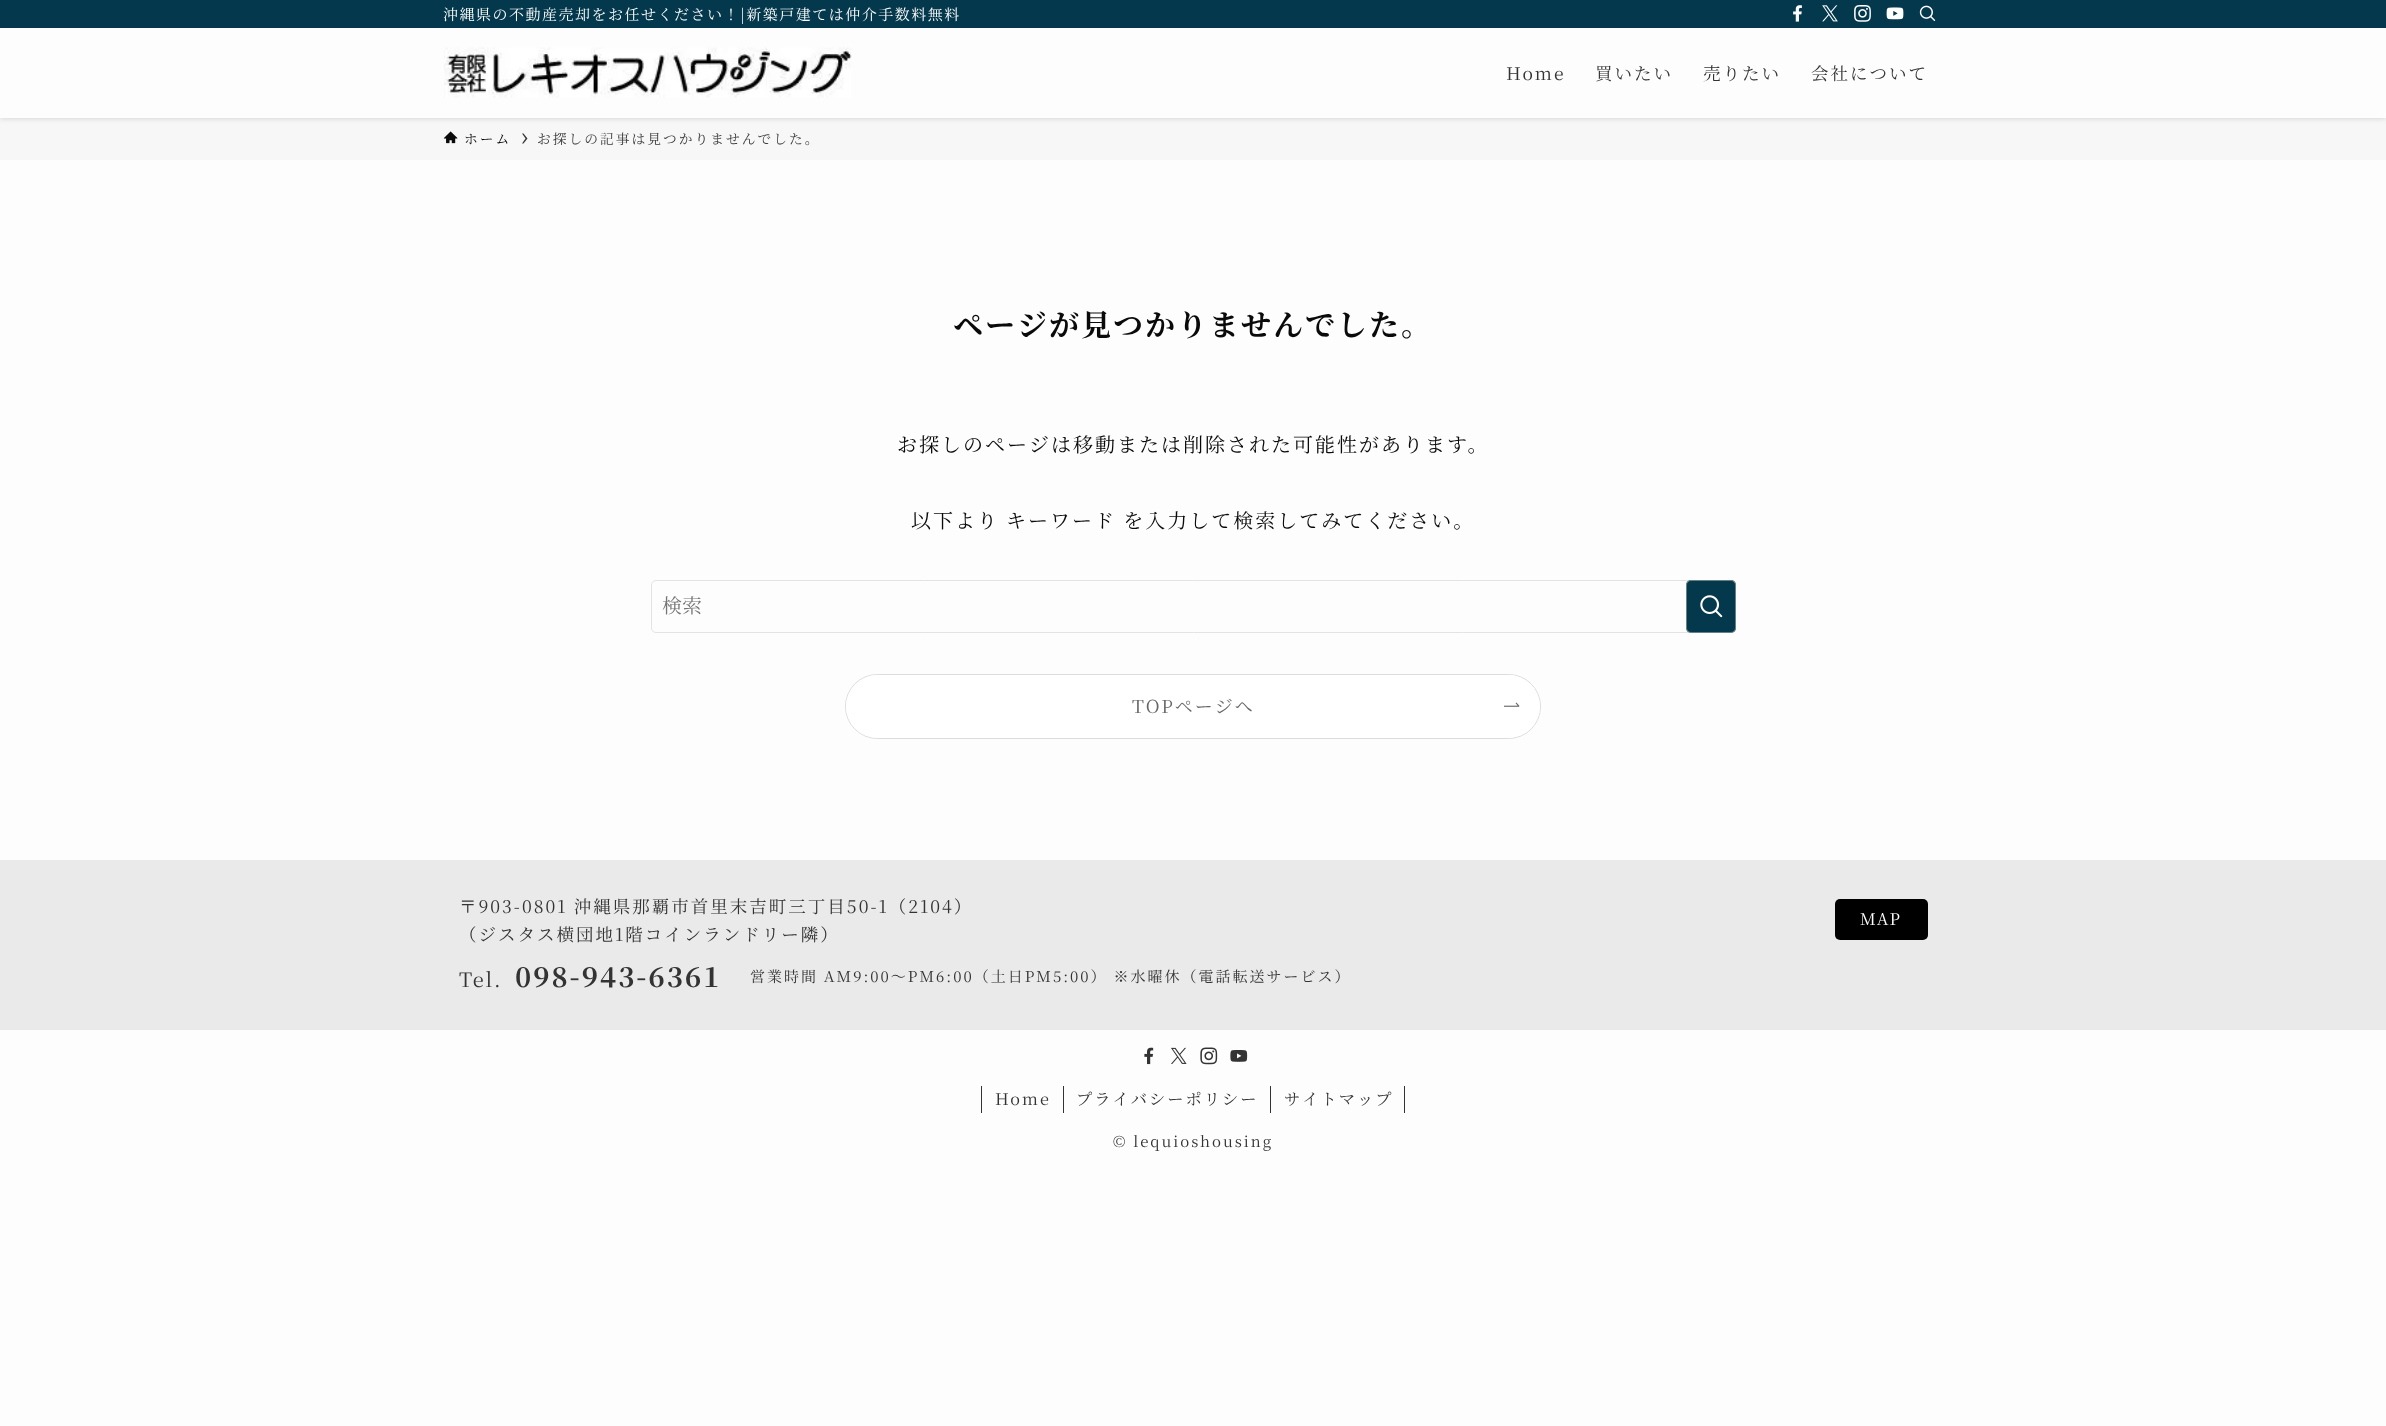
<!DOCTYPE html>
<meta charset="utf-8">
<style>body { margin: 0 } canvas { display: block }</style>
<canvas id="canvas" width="2386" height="1426"></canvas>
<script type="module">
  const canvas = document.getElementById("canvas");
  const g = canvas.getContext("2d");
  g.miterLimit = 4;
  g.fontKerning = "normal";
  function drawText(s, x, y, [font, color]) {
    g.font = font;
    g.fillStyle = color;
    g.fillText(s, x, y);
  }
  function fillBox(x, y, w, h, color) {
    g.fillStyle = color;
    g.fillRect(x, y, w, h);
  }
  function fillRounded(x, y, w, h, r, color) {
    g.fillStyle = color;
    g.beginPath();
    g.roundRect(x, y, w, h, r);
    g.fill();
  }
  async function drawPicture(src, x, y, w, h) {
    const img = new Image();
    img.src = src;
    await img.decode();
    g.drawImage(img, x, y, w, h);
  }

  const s1 = ["15px Noto Serif JP", "#FFFFFF"];
  const s2 = ["17.5px Noto Serif JP", "#333333"];
  const s3 = ["13.75px Noto Serif JP", "#0A0A0A"];
  const s4 = ["13.75px Noto Serif JP", "#393939"];
  const s5 = ["bold 30px Noto Serif JP", "#0A0A0A"];
  const s6 = ["20px Noto Serif JP", "#0A0A0A"];
  const s7 = ["20px Noto Serif JP", "#757575"];
  const s8 = ["18px Noto Serif JP", "#666666"];
  const s9 = ["16.25px Noto Serif JP", "#FFFFFF"];
  const s10 = ["20px Noto Serif JP", "#333333"];
  const s11 = ["bold 27.5px Noto Serif JP", "#333333"];
  const s12 = ["15px Noto Serif JP", "#333333"];
  const s13 = ["16.25px Noto Serif JP", "#333333"];

  fillBox(0, 0, 2386, 1426, "#FDFDFD");
  fillBox(0, 118, 2386, 42, "#F7F7F7");
  g.fillStyle = "rgba(0, 0, 0, 0.12)";
  g.filter = "blur(2.5px)";
  g.beginPath();
  g.rect(0, 1, 2386, 118);
  g.fill();
  g.filter = "none";
  fillBox(0, 28, 2386, 90, "#FDFDFD");
  fillBox(0, 0, 2386, 28, "#04384C");
  g.letterSpacing = "1.5px";
  drawText("沖縄県の不動産売却をお任せください！|新築戸建ては仲介手数料無料", 443, 20, s1);
  await drawPicture("pic1.png", 1793, 5, 9, 17);
  await drawPicture("pic2.png", 1822, 5, 16, 17);
  await drawPicture("pic3.png", 1854, 5, 17, 17);
  await drawPicture("pic4.png", 1886, 7, 18, 13);
  await drawPicture("pic5.png", 1919, 5, 17, 16);
  await drawPicture("pic6.png", 444, 47, 408, 51);
  g.letterSpacing = "2px";
  drawText("Home", 1506, 80, s2);
  drawText("買いたい", 1595, 80, s2);
  drawText("売りたい", 1703, 80, s2);
  drawText("会社について", 1811, 80, s2);
  await drawPicture("pic7.png", 443, 131, 15, 13);
  drawText("ホーム", 464, 144, s3);
  g.fillStyle = "#393939";
  g.beginPath();
  g.moveTo(523.5, 133.5);
  g.lineTo(522, 133.5);
  g.lineTo(525.5, 138.5);
  g.lineTo(522, 143.5);
  g.lineTo(523.5, 143.5);
  g.lineTo(527.5, 138.5);
  g.closePath();
  g.fill();
  drawText("お探しの記事は見つかりませんでした。", 537, 144, s4);
  drawText("ページが見つかりませんでした。", 953, 336, s5);
  drawText("お探しのページは移動または削除された可能性があります。", 897, 452, s6);
  drawText("以下より キーワード を入力して検索してみてください。", 911, 528, s6);
  g.beginPath();
  g.roundRect(651.5, 580.5, 1084, 52, 4.5);
  g.strokeStyle = "#E3E3E3";
  g.stroke();
  g.letterSpacing = "0px";
  drawText("検索", 662, 613, s7);
  fillRounded(1686, 580, 50, 53, 5, "#04384C");
  g.beginPath();
  g.roundRect(1686.5, 580.5, 49, 52, 4.5);
  g.strokeStyle = "rgba(199, 199, 199, 0.5)";
  g.stroke();
  await drawPicture("pic8.png", 1700, 595, 23, 23);
  g.beginPath();
  g.roundRect(845.5, 674.5, 695, 64, 32);
  g.strokeStyle = "#DCDCDC";
  g.stroke();
  fillRounded(846, 675, 694, 63, 31.5, "#FFFFFF");
  g.letterSpacing = "2px";
  drawText("TOPページへ", 1132, 713, s8);
  await drawPicture("pic9.png", 1504, 702, 16, 5);
  fillBox(0, 860, 2386, 170, "#EAEAEA");
  drawText("〒903-0801 沖縄県那覇市首里末吉町三丁目50-1（2104）", 459, 913, s2);
  drawText("（ジスタス横団地1階コインランドリー隣）", 459, 941, s2);
  fillRounded(1835, 899, 93, 41, 5, "#000000");
  g.letterSpacing = "1px";
  drawText("MAP", 1860, 925, s9);
  g.letterSpacing = "2px";
  drawText("Tel.", 459, 987, s10);
  drawText("098-943-6361", 515, 987, s11);
  drawText("営業時間 AM9:00〜PM6:00（土日PM5:00） ※水曜休（電話転送サービス）", 750, 982, s12);
  await drawPicture("pic10.png", 1144, 1047, 10, 18);
  await drawPicture("pic11.png", 1171, 1047, 16, 17);
  await drawPicture("pic12.png", 1200, 1047, 18, 18);
  await drawPicture("pic13.png", 1230, 1050, 18, 12);
  fillBox(1063, 1086, 1, 27, "#333333");
  fillBox(981, 1086, 1, 27, "#333333");
  drawText("Home", 995, 1105, s13);
  fillBox(1270, 1086, 1, 27, "#333333");
  drawText("プライバシーポリシー", 1076, 1105, s13);
  fillBox(1404, 1086, 1, 27, "#333333");
  drawText("サイトマップ", 1284, 1105, s13);
  drawText("© lequioshousing", 1113, 1147, s12);
</script>
